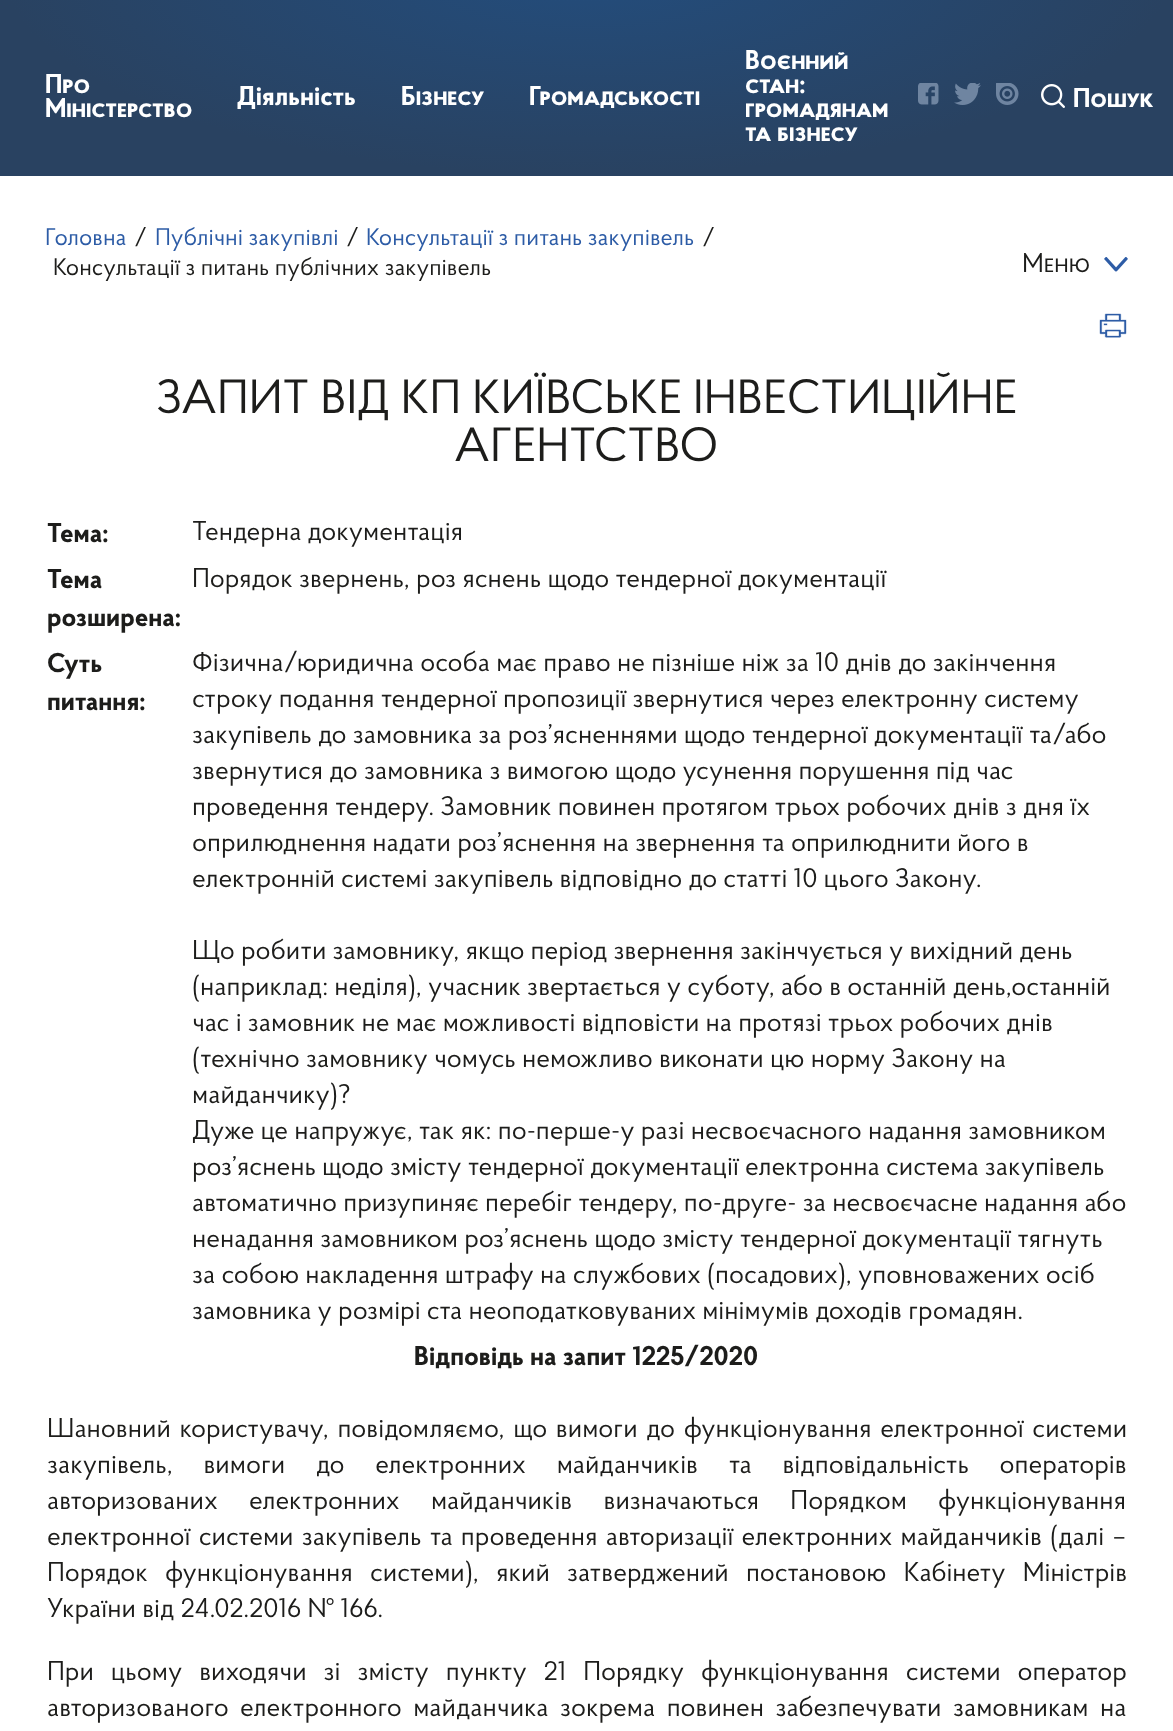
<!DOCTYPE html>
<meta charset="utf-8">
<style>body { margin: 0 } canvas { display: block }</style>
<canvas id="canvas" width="1173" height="1731"></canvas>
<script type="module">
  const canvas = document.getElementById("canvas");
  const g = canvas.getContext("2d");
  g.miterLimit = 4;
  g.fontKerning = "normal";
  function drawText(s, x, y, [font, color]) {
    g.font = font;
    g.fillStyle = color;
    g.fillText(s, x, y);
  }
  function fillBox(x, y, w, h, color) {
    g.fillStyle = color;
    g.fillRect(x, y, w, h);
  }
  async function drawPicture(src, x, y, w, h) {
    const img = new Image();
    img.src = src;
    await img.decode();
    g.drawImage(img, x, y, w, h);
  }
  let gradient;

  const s1 = ["bold 27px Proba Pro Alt", "#FFFFFF"];
  const s2 = ["bold 27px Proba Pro", "#FFFFFF"];
  const s3 = ["24px Proba Pro", "#2D5CA6"];
  const s4 = ["24px Proba Pro", "#1D1D1B"];
  const s5 = ["27px Proba Pro Alt", "#1D1D1B"];
  const s6 = ["48px Proba Pro", "#1D1D1B"];
  const s7 = ["bold 27px Proba Pro", "#1D1D1B"];
  const s8 = ["27px Proba Pro", "#1D1D1B"];

  fillBox(0, 0, 1173, 1731, "#FFFFFF");
  gradient = g.createRadialGradient(587, -97.37, 0, 587, -97.37, 587);
  gradient.addColorStop(0, "#234D7D");
  gradient.addColorStop(1, "#294261");
  g.fillStyle = gradient;
  g.beginPath();
  g.rect(0, 0, 1173, 176);
  g.save();
  g.clip();
  g.scale(1, 211 / 587);
  g.fillRect(0, 0, 1173, 4816);
  g.restore();
  drawText("Про", 45, 93, s1);
  drawText("Міністерство", 45, 117, s1);
  drawText("Діяльність", 237, 105, s2);
  drawText("Бізнесу", 401, 105, s1);
  drawText("Громадськості", 529, 105, s1);
  drawText("Воєнний", 745, 69, s1);
  drawText("стан:", 745, 93, s1);
  drawText("громадянам", 745, 117, s1);
  drawText("та бізнесу", 745, 141, s1);
  await drawPicture("pic1.png", 918, 83, 21, 22);
  await drawPicture("pic2.png", 954, 83, 27, 22);
  await drawPicture("pic3.png", 996, 83, 23, 22);
  await drawPicture("pic4.png", 1041, 84, 24, 24);
  drawText("Пошук", 1073, 107, s1);
  drawText("Головна", 45, 245, s3);
  drawText("/", 134, 245, s4);
  drawText("Публічні закупівлі", 155, 245, s3);
  drawText("/", 346, 245, s4);
  drawText("Консультації з питань закупівель", 366, 245, s3);
  drawText("/", 702, 245, s4);
  drawText("Консультації з питань публічних закупівель", 53, 275, s4);
  drawText("Меню", 1022, 272, s5);
  await drawPicture("pic5.png", 1104, 257, 24, 15);
  await drawPicture("pic6.png", 1099, 313, 28, 25);
  drawText("ЗАПИТ ВІД КП КИЇВСЬКЕ ІНВЕСТИЦІЙНЕ", 156, 413, s6);
  drawText("АГЕНТСТВО", 454, 461, s6);
  drawText("Тема:", 47, 542, s7);
  drawText("Тендерна документація", 192, 540, s8);
  drawText("Тема", 47, 588, s7);
  drawText("розширена:", 47, 626, s7);
  drawText("Порядок звернень, роз яснень щодо тендерної документації", 192, 587, s8);
  drawText("Суть", 47, 672, s7);
  drawText("питання:", 47, 710, s7);
  drawText("Фізична/юридична особа має право не пізніше ніж за 10 днів до закінчення", 192, 671, s8);
  drawText("строку подання тендерної пропозиції звернутися через електронну систему", 192, 707, s8);
  drawText("закупівель до замовника за роз’ясненнями щодо тендерної документації та/або", 192, 743, s8);
  drawText("звернутися до замовника з вимогою щодо усунення порушення під час", 192, 779, s8);
  drawText("проведення тендеру. Замовник повинен протягом трьох робочих днів з дня їх", 192, 815, s8);
  drawText("оприлюднення надати роз’яснення на звернення та оприлюднити його в", 192, 851, s8);
  drawText("електронній системі закупівель відповідно до статті 10 цього Закону.", 192, 887, s8);
  drawText("Що робити замовнику, якщо період звернення закінчується у вихідний день", 192, 959, s8);
  drawText("(наприклад: неділя), учасник звертається у суботу, або в останній день,останній", 192, 995, s8);
  drawText("час і замовник не має можливості відповісти на протязі трьох робочих днів", 192, 1031, s8);
  drawText("(технічно замовнику чомусь неможливо виконати цю норму Закону на", 192, 1067, s8);
  drawText("майданчику)?", 192, 1103, s8);
  drawText("Дуже це напружує, так як: по-перше-у разі несвоєчасного надання замовником", 192, 1139, s8);
  drawText("роз’яснень щодо змісту тендерної документації електронна система закупівель", 192, 1175, s8);
  drawText("автоматично призупиняє перебіг тендеру, по-друге- за несвоєчасне надання або", 192, 1211, s8);
  drawText("ненадання замовником роз’яснень щодо змісту тендерної документації тягнуть", 192, 1247, s8);
  drawText("за собою накладення штрафу на службових (посадових), уповноважених осіб", 192, 1283, s8);
  drawText("замовника у розмірі ста неоподатковуваних мінімумів доходів громадян.", 192, 1319, s8);
  drawText("Відповідь на запит 1225/2020", 414, 1365, s7);
  g.wordSpacing = "2.5px";
  drawText("Шановний користувачу, повідомляємо, що вимоги до функціонування електронної системи", 47, 1437, s8);
  g.wordSpacing = "24.5px";
  drawText("закупівель, вимоги до електронних майданчиків та відповідальність операторів", 47, 1473, s8);
  g.wordSpacing = "25px";
  drawText("авторизованих електронних майданчиків визначаються Порядком функціонування", 47, 1509, s8);
  g.wordSpacing = "2px";
  drawText("електронної системи закупівель та проведення авторизації електронних майданчиків (далі –", 47, 1545, s8);
  g.wordSpacing = "11px";
  drawText("Порядок функціонування системи), який затверджений постановою Кабінету Міністрів", 47, 1581, s8);
  g.wordSpacing = "0px";
  drawText("України від 24.02.2016 № 166.", 47, 1617, s8);
  g.wordSpacing = "10.75px";
  drawText("При цьому виходячи зі змісту пункту 21 Порядку функціонування системи оператор", 47, 1680, s8);
  g.wordSpacing = "5.25px";
  drawText("авторизованого електронного майданчика зокрема повинен забезпечувати замовникам на", 47, 1716, s8);
</script>
